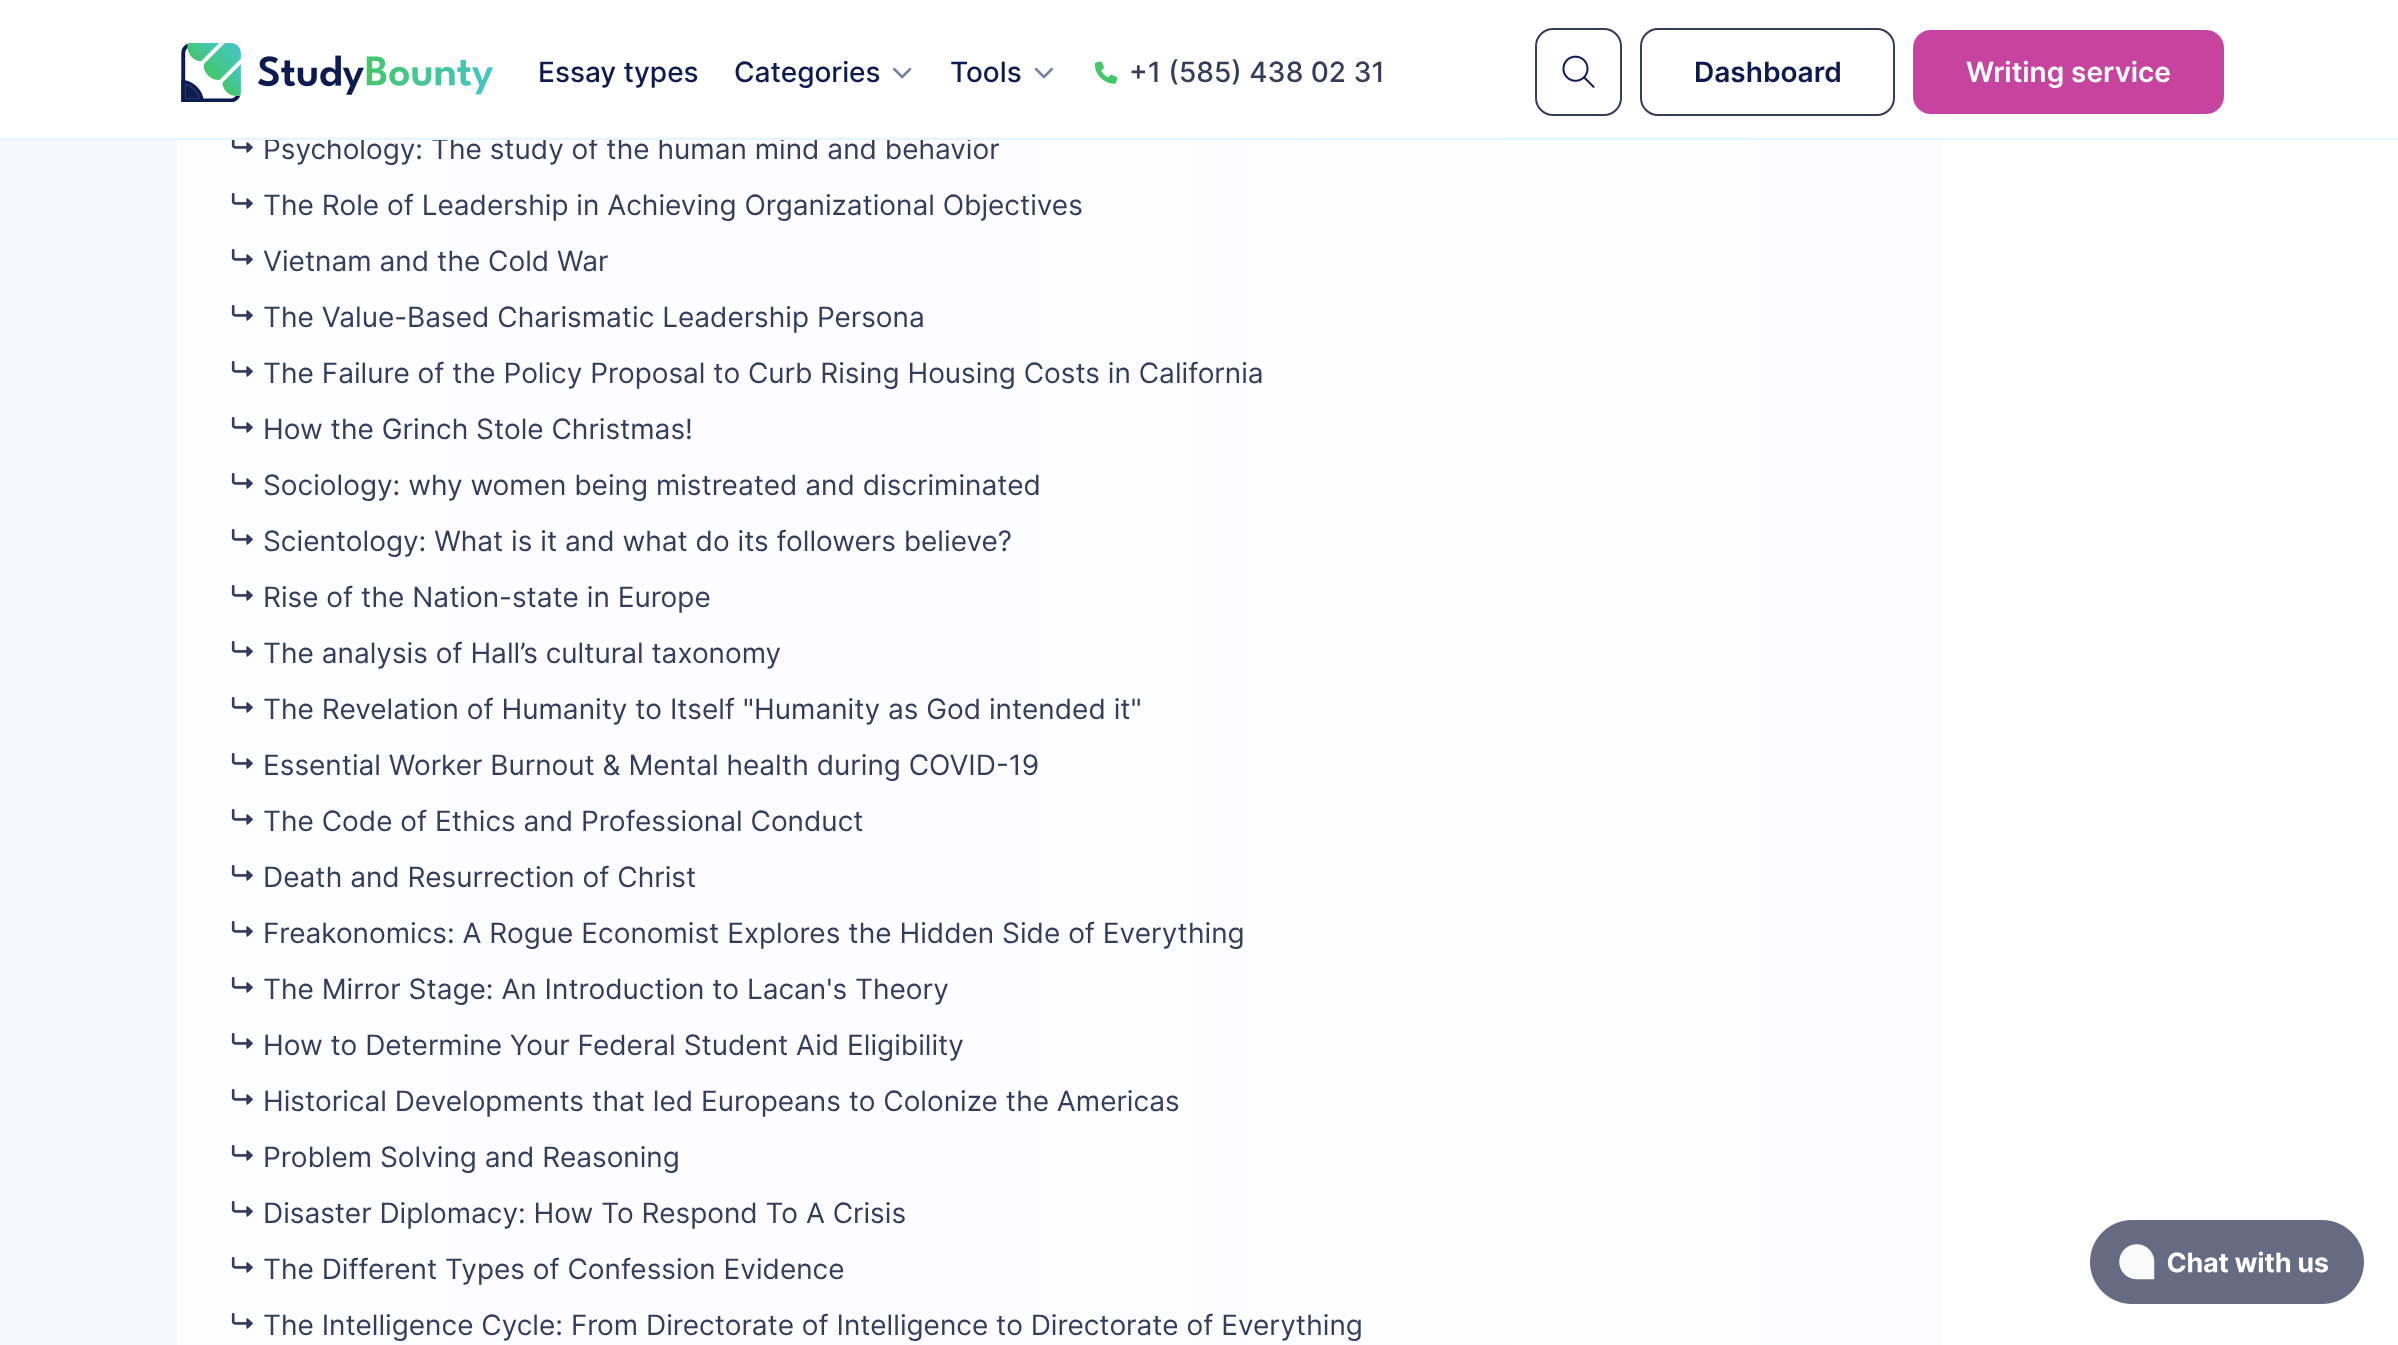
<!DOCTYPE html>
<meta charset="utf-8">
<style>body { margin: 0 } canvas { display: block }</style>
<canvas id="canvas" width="2398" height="1345"></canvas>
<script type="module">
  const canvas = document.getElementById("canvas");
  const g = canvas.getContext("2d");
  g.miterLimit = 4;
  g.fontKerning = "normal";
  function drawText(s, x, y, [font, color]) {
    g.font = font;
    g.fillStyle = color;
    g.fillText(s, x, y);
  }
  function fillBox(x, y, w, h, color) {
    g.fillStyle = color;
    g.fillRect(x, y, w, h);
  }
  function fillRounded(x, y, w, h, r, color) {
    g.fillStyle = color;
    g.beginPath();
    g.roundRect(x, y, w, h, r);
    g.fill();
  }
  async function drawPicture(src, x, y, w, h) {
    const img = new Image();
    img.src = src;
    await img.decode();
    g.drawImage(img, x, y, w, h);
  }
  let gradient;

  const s1 = ["500 28px Inter", "#0D1C50"];
  const s2 = ["500 28px Inter", "#353D5C"];
  const s3 = ["600 28px Inter", "#0D1C50"];
  const s4 = ["600 28px Inter", "#FFFFFF"];
  const s5 = ["28px Inter", "#353D5C"];

  fillBox(0, 0, 2398, 1345, "#FFFFFF");
  gradient = g.createLinearGradient(0, 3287, 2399, 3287);
  gradient.addColorStop(0.39, "#F7F8FF");
  gradient.addColorStop(1, "#FFFFFF");
  g.fillStyle = gradient;
  g.fillRect(0, 140, 1942, 1205);
  await drawPicture("pic1.png", 181, 43, 313, 59);
  drawText("Essay types", 538, 82, s1);
  drawText("Categories", 734, 82, s1);
  await drawPicture("pic2.png", 893, 67, 19, 12);
  drawText("Tools", 950, 82, s1);
  await drawPicture("pic3.png", 1034, 67, 19, 12);
  await drawPicture("pic4.png", 1094, 61, 24, 23);
  drawText("+1 (585) 438 02 31", 1129, 82, s2);
  g.beginPath();
  g.roundRect(1536, 29, 85, 86, 17);
  g.strokeStyle = "#353D5C";
  g.lineWidth = 2;
  g.stroke();
  await drawPicture("pic5.png", 1562, 55, 33, 33);
  g.beginPath();
  g.roundRect(1641, 29, 253, 86, 17);
  g.stroke();
  drawText("Dashboard", 1694, 82, s3);
  fillRounded(1913, 30, 311, 84, 18, "#C6449F");
  drawText("Writing service", 1966, 82, s4);
  gradient = g.createLinearGradient(177, 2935, 2224, 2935);
  gradient.addColorStop(0, "rgba(255, 255, 255, 0.8)");
  gradient.addColorStop(1, "rgba(255, 255, 255, 0.7)");
  gradient.addColorStop(1, "rgba(255, 255, 255, 0.4)");
  g.fillStyle = gradient;
  g.fillRect(177, 140, 1582, 1205);
  drawText("Psychology: The study of the human mind and behavior", 263, 159, s5);
  fillBox(593, 137, 4, 1, "#FFFFFF");
  fillBox(0, 138, 2398, 2, "#E3F5FF");
  await drawPicture("pic6.png", 231, 140, 22, 13);
  await drawPicture("pic7.png", 231, 193, 22, 16);
  drawText("The Role of Leadership in Achieving Organizational Objectives", 263, 215, s5);
  await drawPicture("pic7.png", 231, 249, 22, 16);
  drawText("Vietnam and the Cold War", 263, 271, s5);
  await drawPicture("pic7.png", 231, 305, 22, 16);
  drawText("The Value-Based Charismatic Leadership Persona", 263, 327, s5);
  await drawPicture("pic7.png", 231, 361, 22, 16);
  drawText("The Failure of the Policy Proposal to Curb Rising Housing Costs in California", 263, 383, s5);
  await drawPicture("pic7.png", 231, 417, 22, 16);
  drawText("How the Grinch Stole Christmas!", 263, 439, s5);
  await drawPicture("pic7.png", 231, 473, 22, 16);
  drawText("Sociology: why women being mistreated and discriminated", 263, 495, s5);
  await drawPicture("pic7.png", 231, 529, 22, 16);
  drawText("Scientology: What is it and what do its followers believe?", 263, 551, s5);
  await drawPicture("pic7.png", 231, 585, 22, 16);
  drawText("Rise of the Nation-state in Europe", 263, 607, s5);
  await drawPicture("pic7.png", 231, 641, 22, 16);
  drawText("The analysis of Hall’s cultural taxonomy", 263, 663, s5);
  await drawPicture("pic7.png", 231, 697, 22, 16);
  drawText("The Revelation of Humanity to Itself \"Humanity as God intended it\"", 263, 719, s5);
  await drawPicture("pic7.png", 231, 753, 22, 16);
  drawText("Essential Worker Burnout & Mental health during COVID-19", 263, 775, s5);
  await drawPicture("pic7.png", 231, 809, 22, 16);
  drawText("The Code of Ethics and Professional Conduct", 263, 831, s5);
  await drawPicture("pic7.png", 231, 865, 22, 16);
  drawText("Death and Resurrection of Christ", 263, 887, s5);
  await drawPicture("pic7.png", 231, 921, 22, 16);
  drawText("Freakonomics: A Rogue Economist Explores the Hidden Side of Everything", 263, 943, s5);
  await drawPicture("pic7.png", 231, 977, 22, 16);
  drawText("The Mirror Stage: An Introduction to Lacan's Theory", 263, 999, s5);
  await drawPicture("pic7.png", 231, 1033, 22, 16);
  drawText("How to Determine Your Federal Student Aid Eligibility", 263, 1055, s5);
  await drawPicture("pic7.png", 231, 1089, 22, 16);
  drawText("Historical Developments that led Europeans to Colonize the Americas", 263, 1111, s5);
  await drawPicture("pic7.png", 231, 1145, 22, 16);
  drawText("Problem Solving and Reasoning", 263, 1167, s5);
  await drawPicture("pic7.png", 231, 1201, 22, 16);
  drawText("Disaster Diplomacy: How To Respond To A Crisis", 263, 1223, s5);
  await drawPicture("pic7.png", 231, 1257, 22, 16);
  drawText("The Different Types of Confession Evidence", 263, 1279, s5);
  await drawPicture("pic7.png", 231, 1313, 22, 16);
  drawText("The Intelligence Cycle: From Directorate of Intelligence to Directorate of Everything", 263, 1335, s5);
  await drawPicture("pic8.png", 2090, 1220, 274, 84);
</script>
